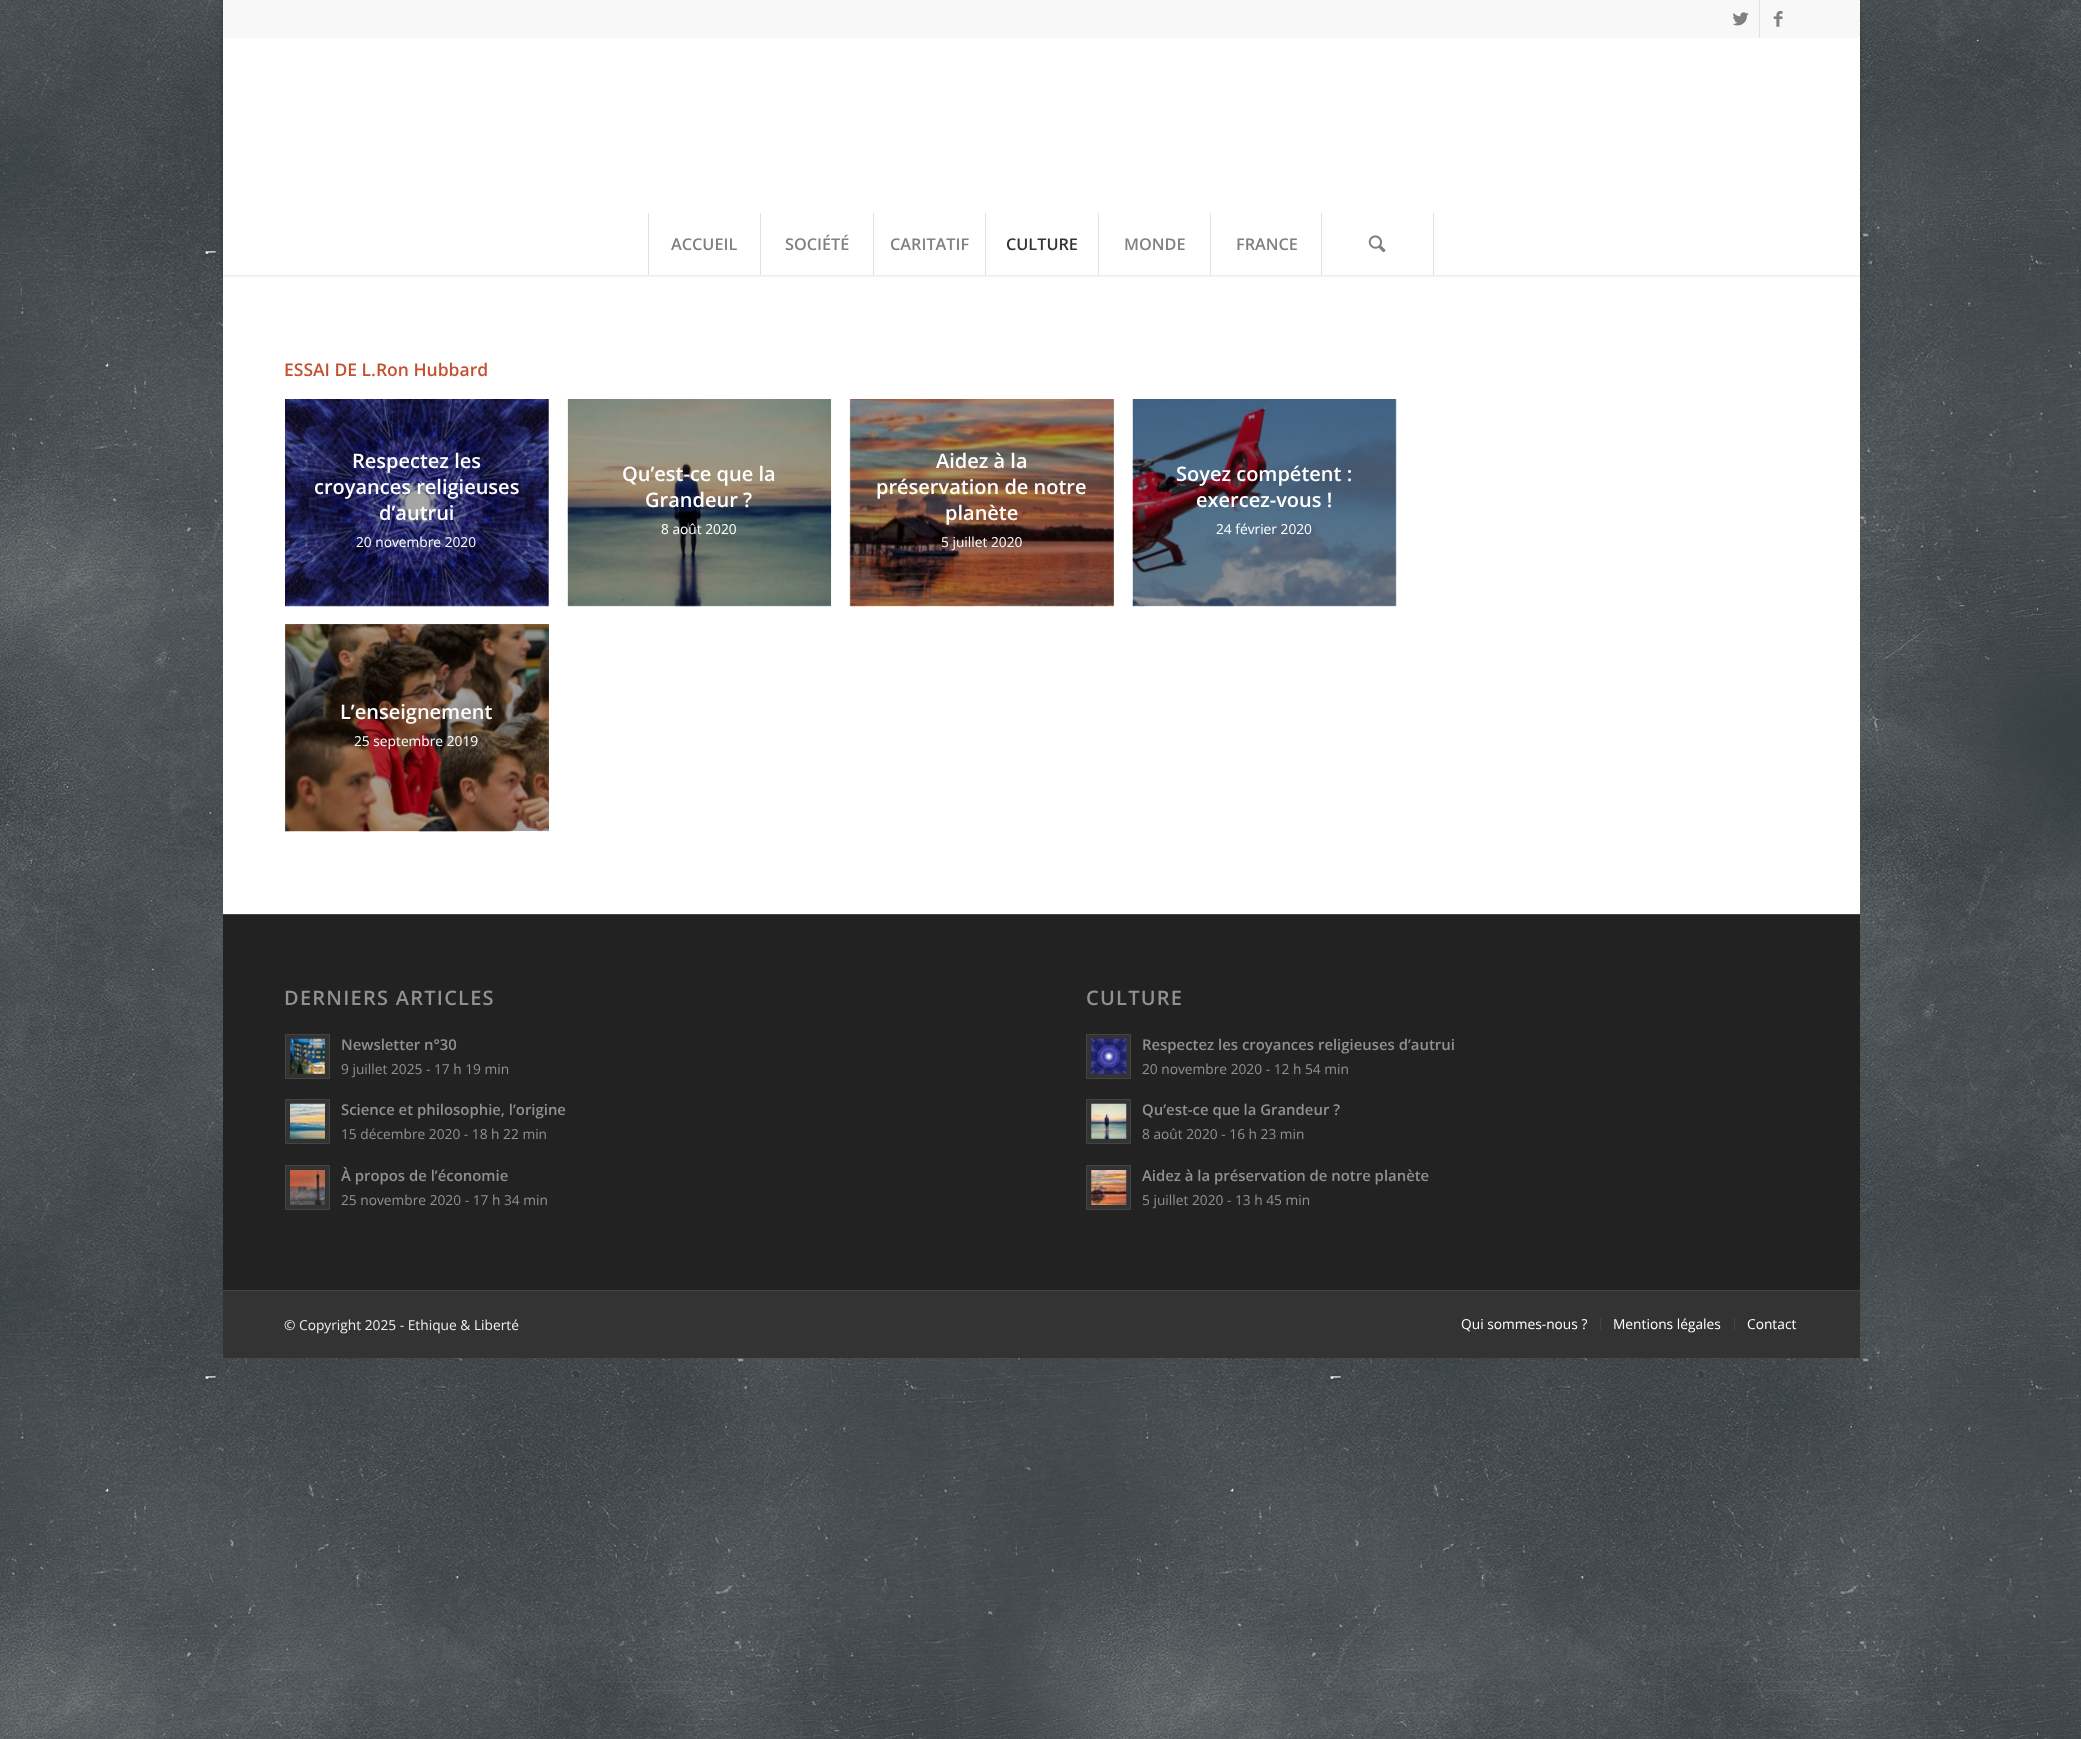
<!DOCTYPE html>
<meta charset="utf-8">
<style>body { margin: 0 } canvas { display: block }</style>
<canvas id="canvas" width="2081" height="1739"></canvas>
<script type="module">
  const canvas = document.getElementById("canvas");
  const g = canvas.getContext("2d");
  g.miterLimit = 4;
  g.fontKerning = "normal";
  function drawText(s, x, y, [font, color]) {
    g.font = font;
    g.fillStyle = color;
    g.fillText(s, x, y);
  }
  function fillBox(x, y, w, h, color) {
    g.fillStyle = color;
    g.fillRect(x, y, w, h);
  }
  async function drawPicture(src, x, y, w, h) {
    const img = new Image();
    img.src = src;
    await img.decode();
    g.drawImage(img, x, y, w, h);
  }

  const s1 = ["600 16.25px Open Sans", "#808080"];
  const s2 = ["600 16.25px Open Sans", "#333333"];
  const s3 = ["600 17.5px Open Sans", "#C3512F"];
  const s4 = ["600 20px Open Sans", "#FFFFFF"];
  const s5 = ["13.75px Open Sans", "#FFFFFF"];
  const s6 = ["600 20px Open Sans", "#919191"];
  const s7 = ["600 14.9px Open Sans", "#919191"];
  const s8 = ["13.75px Open Sans", "#919191"];
  const s9 = ["13.75px Open Sans", "#EEEEEE"];

  fillBox(0, 0, 2081, 1739, "#363D40");
  await drawPicture("pic1.png", 0, 0, 2081, 1739);
  fillBox(223, 38, 1637, 876, "#FFFFFF");
  g.save();
  g.beginPath();
  g.moveTo(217, 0);
  g.lineTo(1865, 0);
  g.lineTo(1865, 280);
  g.lineTo(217, 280);
  g.closePath();
  g.moveTo(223, 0);
  g.lineTo(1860, 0);
  g.lineTo(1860, 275);
  g.lineTo(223, 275);
  g.closePath();
  g.clip("evenodd");
  g.fillStyle = "rgba(0, 0, 0, 0.1)";
  g.filter = "blur(1px)";
  g.beginPath();
  g.rect(221, -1, 1640, 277);
  g.fill();
  g.filter = "none";
  g.restore();
  fillBox(223, 0, 1637, 38, "#F8F8F8");
  fillBox(1759, 0, 1, 38, "#E1E1E1");
  await drawPicture("pic2.png", 1733, 12, 16, 14);
  await drawPicture("pic3.png", 1773, 11, 10, 16);
  fillBox(648, 213, 1, 62, "#E1E1E1");
  drawText("ACCUEIL", 671, 250, s1);
  fillBox(760, 213, 1, 62, "#E1E1E1");
  drawText("SOCIÉTÉ", 785, 250, s1);
  fillBox(873, 213, 1, 62, "#E1E1E1");
  drawText("CARITATIF", 890, 250, s1);
  fillBox(985, 213, 1, 62, "#E1E1E1");
  drawText("CULTURE", 1006, 250, s2);
  fillBox(1098, 213, 1, 62, "#E1E1E1");
  drawText("MONDE", 1124, 250, s1);
  fillBox(1210, 213, 1, 62, "#E1E1E1");
  drawText("FRANCE", 1236, 250, s1);
  fillBox(1433, 213, 1, 62, "#E1E1E1");
  fillBox(1321, 213, 1, 62, "#E1E1E1");
  await drawPicture("pic4.png", 1368, 235, 18, 18);
  drawText("ESSAI DE L.Ron Hubbard", 284, 376, s3);
  await drawPicture("pic5.png", 285, 399, 264, 208);
  fillBox(285, 399, 264, 207, "rgba(0, 0, 0, 0.35)");
  drawText("Respectez les", 352, 468, s4);
  drawText("croyances religieuses", 314, 494, s4);
  drawText("d’autrui", 379, 520, s4);
  drawText("20 novembre 2020", 356, 547, s5);
  await drawPicture("pic6.png", 567, 399, 265, 208);
  fillBox(568, 399, 263, 207, "rgba(0, 0, 0, 0.35)");
  drawText("Qu’est-ce que la", 622, 481, s4);
  drawText("Grandeur ?", 645, 507, s4);
  drawText("8 août 2020", 661, 534, s5);
  await drawPicture("pic7.png", 849, 399, 265, 208);
  fillBox(850, 399, 264, 207, "rgba(0, 0, 0, 0.35)");
  drawText("Aidez à la", 936, 468, s4);
  drawText("préservation de notre", 876, 494, s4);
  drawText("planète", 945, 520, s4);
  drawText("5 juillet 2020", 941, 547, s5);
  await drawPicture("pic8.png", 1132, 399, 265, 208);
  fillBox(1133, 399, 263, 207, "rgba(0, 0, 0, 0.35)");
  drawText("Soyez compétent :", 1176, 481, s4);
  drawText("exercez-vous !", 1196, 507, s4);
  drawText("24 février 2020", 1216, 534, s5);
  await drawPicture("pic9.png", 285, 624, 264, 208);
  fillBox(285, 624, 264, 207, "rgba(0, 0, 0, 0.35)");
  drawText("L’enseignement", 340, 719, s4);
  drawText("25 septembre 2019", 354, 746, s5);
  fillBox(223, 915, 1637, 375, "#222222");
  fillBox(223, 914, 1637, 1, "#444444");
  g.letterSpacing = "1.25px";
  drawText("DERNIERS ARTICLES", 284, 1005, s6);
  g.fillStyle = "#333333";
  g.beginPath();
  g.rect(285.5, 1034.5, 44, 44);
  g.fill();
  g.strokeStyle = "#444444";
  g.stroke();
  await drawPicture("pic10.png", 290, 1038, 35, 36);
  g.letterSpacing = "0px";
  drawText("Newsletter n°30", 341, 1050, s7);
  drawText("9 juillet 2025 - 17 h 19 min", 341, 1074, s8);
  g.fillStyle = "#333333";
  g.beginPath();
  g.rect(285.5, 1099.5, 44, 44);
  g.fill();
  g.stroke();
  await drawPicture("pic11.png", 290, 1103, 35, 36);
  drawText("Science et philosophie, l’origine", 341, 1115, s7);
  drawText("15 décembre 2020 - 18 h 22 min", 341, 1139, s8);
  g.fillStyle = "#333333";
  g.beginPath();
  g.rect(285.5, 1165.5, 44, 44);
  g.fill();
  g.stroke();
  await drawPicture("pic12.png", 290, 1170, 35, 35);
  drawText("À propos de l’économie", 341, 1181, s7);
  drawText("25 novembre 2020 - 17 h 34 min", 341, 1205, s8);
  g.letterSpacing = "1.25px";
  drawText("CULTURE", 1086, 1005, s6);
  g.fillStyle = "#333333";
  g.beginPath();
  g.rect(1086.5, 1034.5, 44, 44);
  g.fill();
  g.stroke();
  await drawPicture("pic13.png", 1091, 1038, 36, 36);
  g.letterSpacing = "0px";
  drawText("Respectez les croyances religieuses d’autrui", 1142, 1050, s7);
  drawText("20 novembre 2020 - 12 h 54 min", 1142, 1074, s8);
  g.fillStyle = "#333333";
  g.beginPath();
  g.rect(1086.5, 1099.5, 44, 44);
  g.fill();
  g.stroke();
  await drawPicture("pic14.png", 1091, 1103, 36, 36);
  drawText("Qu’est-ce que la Grandeur ?", 1142, 1115, s7);
  drawText("8 août 2020 - 16 h 23 min", 1142, 1139, s8);
  g.fillStyle = "#333333";
  g.beginPath();
  g.rect(1086.5, 1165.5, 44, 44);
  g.fill();
  g.stroke();
  await drawPicture("pic15.png", 1091, 1170, 36, 35);
  drawText("Aidez à la préservation de notre planète", 1142, 1181, s7);
  drawText("5 juillet 2020 - 13 h 45 min", 1142, 1205, s8);
  fillBox(223, 1291, 1637, 67, "#333333");
  fillBox(223, 1290, 1637, 1, "#444444");
  drawText("© Copyright 2025 - Ethique & Liberté", 284, 1330, s9);
  drawText("Qui sommes-nous ?", 1461, 1329, s5);
  fillBox(1600, 1318, 1, 12, "#444444");
  drawText("Mentions légales", 1613, 1329, s5);
  fillBox(1734, 1318, 1, 12, "#444444");
  drawText("Contact", 1747, 1329, s5);
</script>
